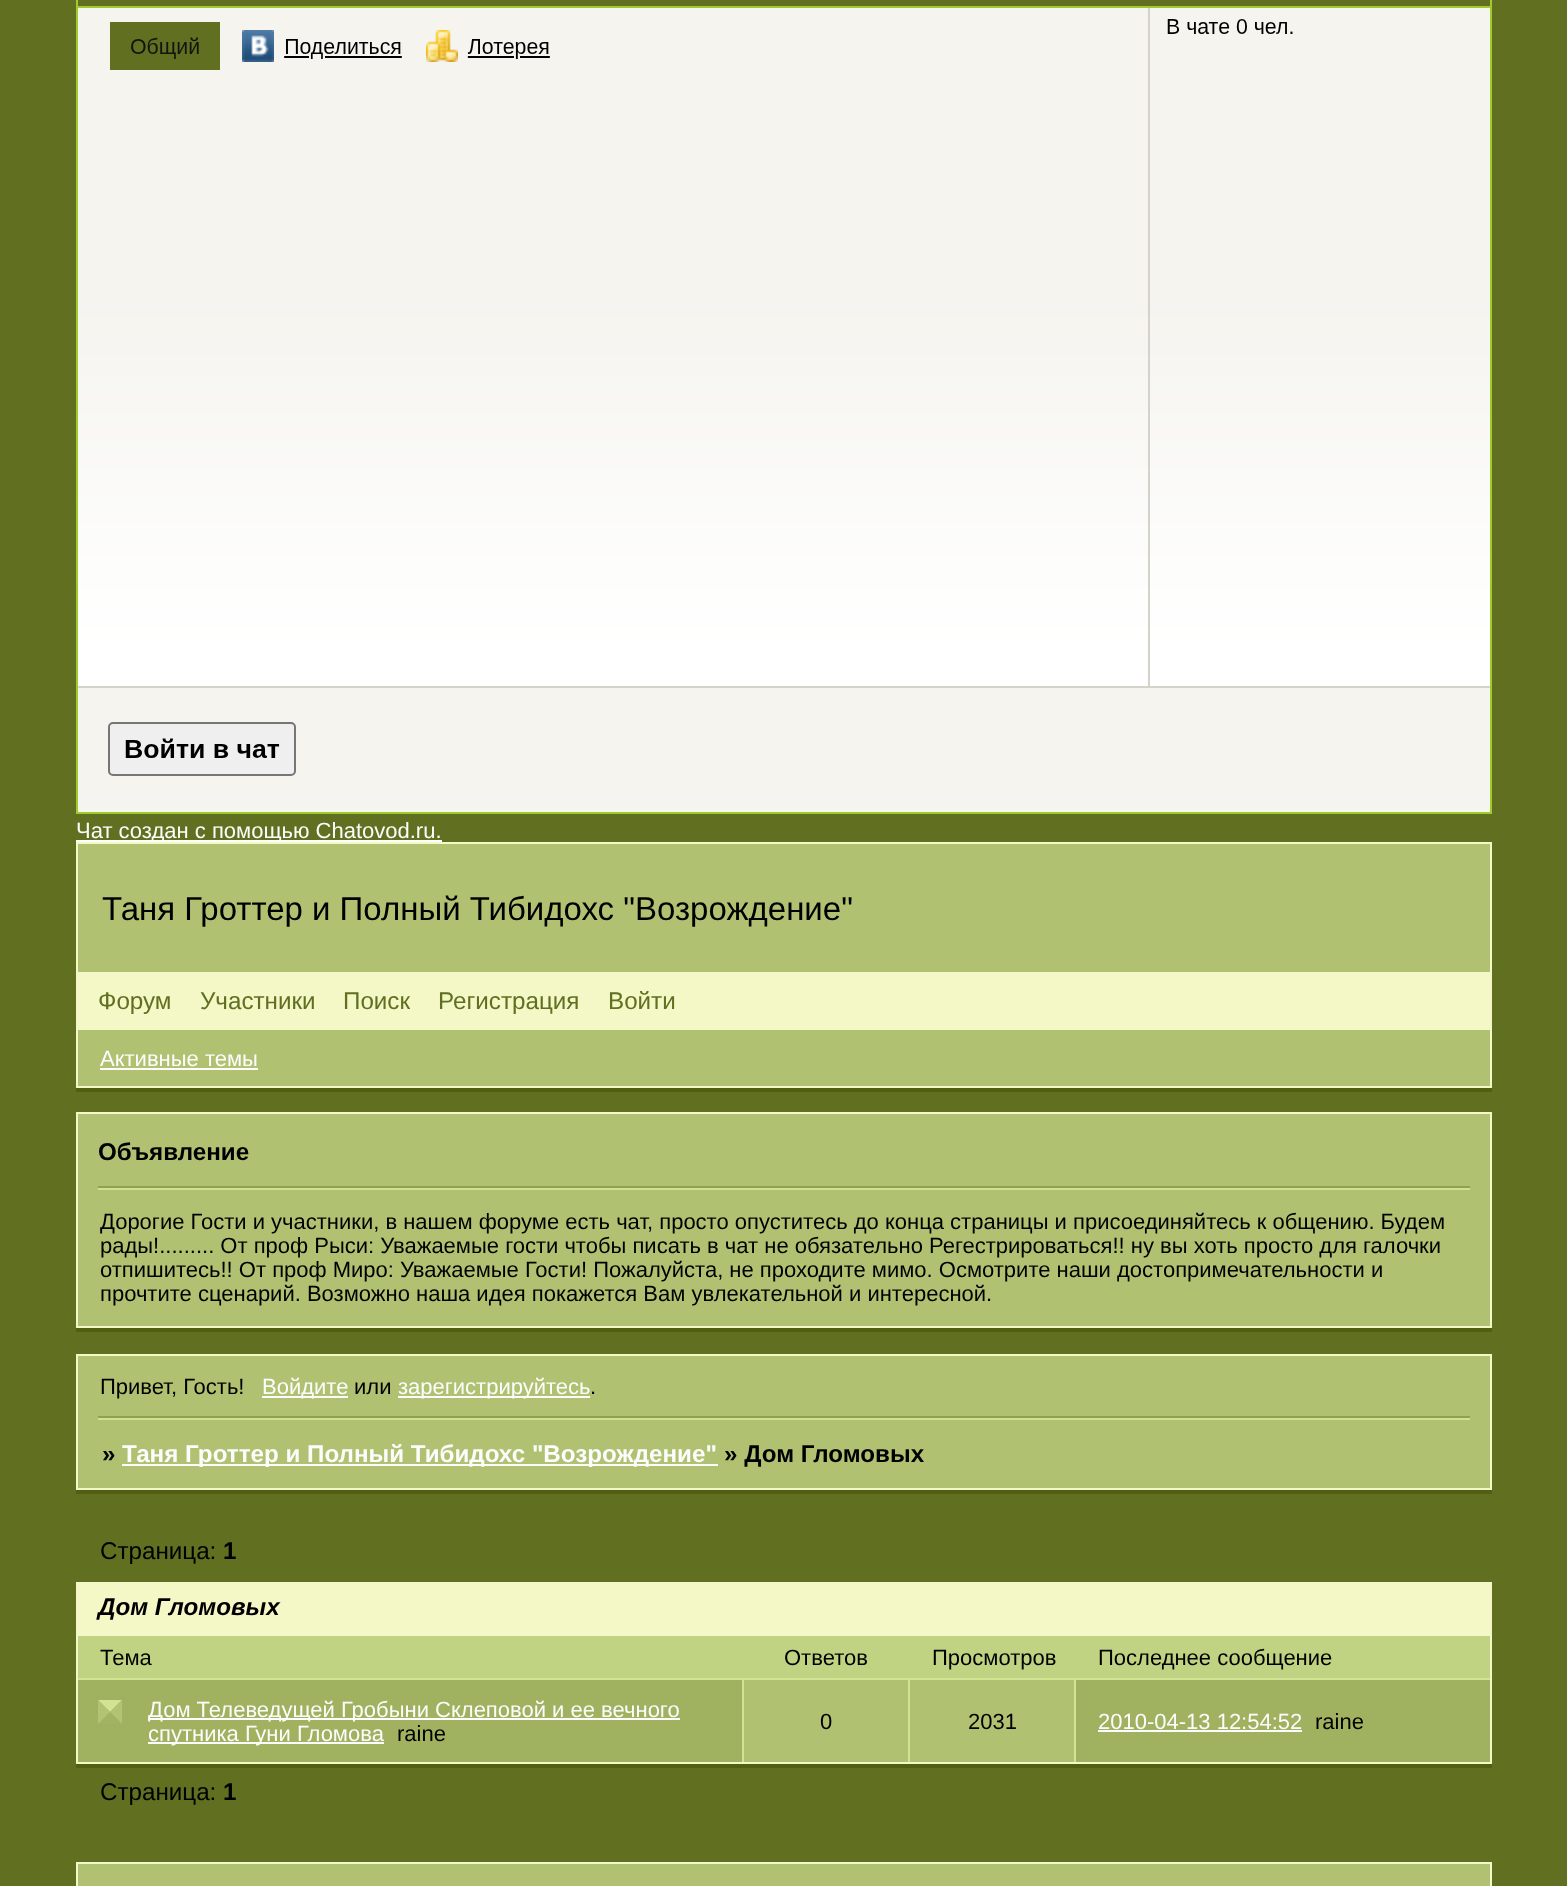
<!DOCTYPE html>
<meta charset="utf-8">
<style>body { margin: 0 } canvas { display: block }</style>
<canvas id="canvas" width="1567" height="1886"></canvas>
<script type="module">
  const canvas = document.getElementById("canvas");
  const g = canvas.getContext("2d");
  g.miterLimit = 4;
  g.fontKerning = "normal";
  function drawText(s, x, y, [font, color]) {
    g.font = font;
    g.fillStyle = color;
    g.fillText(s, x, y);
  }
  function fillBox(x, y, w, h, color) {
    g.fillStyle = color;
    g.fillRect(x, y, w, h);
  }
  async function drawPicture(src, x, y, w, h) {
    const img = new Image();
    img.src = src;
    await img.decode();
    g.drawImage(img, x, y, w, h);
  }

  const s1 = ["22px Liberation Sans", "#FAFDFC"];
  const s2 = ["33px Liberation Sans", "#000000"];
  const s3 = ["24.2px Liberation Sans", "#607020"];
  const s4 = ["bold 24.2px Liberation Sans", "#000000"];
  const s5 = ["22px Liberation Sans", "#000000"];
  const s6 = ["bold 24.2px Liberation Sans", "#FAFDFC"];
  const s7 = ["24.2px Liberation Sans", "#000000"];
  const s8 = ["italic bold 24.2px Liberation Sans", "#000000"];

  fillBox(0, 0, 1567, 1886, "#607020");
  await drawPicture("pic1.png", 76, 0, 1416, 814);
  fillBox(76, 840, 366, 2, "#FAFDFC");
  fillBox(76, 842, 1416, 2, "#F4F7C6");
  fillBox(76, 842, 2, 130, "#F4F7C6");
  drawText("Чат создан с помощью Chatovod.ru.", 76, 838, s1);
  fillBox(78, 844, 1412, 128, "#B0C271");
  fillBox(1490, 842, 2, 130, "#F4F7C6");
  drawText("Таня Гроттер и Полный Тибидохс \"Возрождение\"", 102, 920, s2);
  fillBox(76, 972, 1416, 58, "#F4F7C6");
  drawText("Форум", 98, 1009, s3);
  drawText("Участники", 200, 1009, s3);
  drawText("Поиск", 343, 1009, s3);
  drawText("Регистрация", 438, 1009, s3);
  drawText("Войти", 608, 1009, s3);
  fillBox(76, 1088, 1416, 4, "#506010");
  fillBox(78, 1030, 1412, 56, "#B0C271");
  fillBox(1490, 1030, 2, 58, "#F4F7C6");
  fillBox(76, 1086, 1416, 2, "#F4F7C6");
  fillBox(76, 1030, 2, 58, "#F4F7C6");
  drawText("Активные темы", 100, 1066, s1);
  fillBox(100, 1068, 158, 2, "#FAFDFC");
  fillBox(76, 1328, 1416, 4, "#506010");
  g.fillStyle = "#B0C271";
  g.beginPath();
  g.rect(77, 1113, 1414, 214);
  g.fill();
  g.strokeStyle = "#F4F7C6";
  g.lineWidth = 2;
  g.stroke();
  fillBox(98, 1188, 1372, 2, "#D0E291");
  fillBox(98, 1186, 1372, 2, "#90A251");
  drawText("Объявление", 98, 1160, s4);
  drawText("Дорогие Гости и участники, в нашем форуме есть чат, просто опуститесь до конца страницы и присоединяйтесь к общению. Будем", 100, 1229, s5);
  drawText("рады!......... От проф Рыси: Уважаемые гости чтобы писать в чат не обязательно Регестрироваться!! ну вы хоть просто для галочки", 100, 1253, s5);
  drawText("отпишитесь!! От проф Миро: Уважаемые Гости! Пожалуйста, не проходите мимо. Осмотрите наши достопримечательности и", 100, 1277, s5);
  drawText("прочтите сценарий. Возможно наша идея покажется Вам увлекательной и интересной.", 100, 1301, s5);
  fillBox(78, 1356, 1412, 132, "#B0C271");
  fillBox(76, 1354, 1416, 2, "#F4F7C6");
  fillBox(1490, 1354, 2, 136, "#F4F7C6");
  fillBox(76, 1354, 2, 66, "#F4F7C6");
  drawText("Привет, Гость!", 100, 1394, s5);
  fillBox(262, 1396, 86, 2, "#FAFDFC");
  drawText("Войдите", 262, 1394, s1);
  drawText("или", 354, 1394, s5);
  fillBox(398, 1396, 192, 2, "#FAFDFC");
  drawText("зарегистрируйтесь", 398, 1394, s1);
  drawText(".", 590, 1394, s5);
  fillBox(98, 1416, 1372, 2, "#90A251");
  fillBox(98, 1418, 1372, 2, "#D0E291");
  fillBox(76, 1490, 1416, 4, "#506010");
  fillBox(76, 1488, 1416, 2, "#F4F7C6");
  fillBox(76, 1416, 2, 74, "#F4F7C6");
  drawText("»", 102, 1462, s4);
  fillBox(122, 1464, 596, 2, "#FAFDFC");
  drawText("Таня Гроттер и Полный Тибидохс \"Возрождение\"", 122, 1462, s6);
  drawText("» Дом Гломовых", 724, 1462, s4);
  drawText("Страница:", 100, 1559, s7);
  drawText("1", 223, 1559, s4);
  fillBox(76, 1582, 1416, 52, "#F4F7C6");
  drawText("Дом Гломовых", 98, 1615, s8);
  fillBox(76, 1764, 1416, 4, "#506010");
  fillBox(78, 1680, 1412, 82, "#A0B160");
  g.strokeRect(77, 1635, 1414, 128);
  fillBox(78, 1636, 1412, 42, "#C0D382");
  drawText("Тема", 100, 1665, s5);
  drawText("Ответов", 784, 1665, s5);
  drawText("Просмотров", 932, 1665, s5);
  drawText("Последнее сообщение", 1098, 1665, s5);
  g.fillStyle = "#D1E493";
  g.beginPath();
  g.moveTo(98, 1700);
  g.lineTo(122, 1700);
  g.lineTo(110, 1712);
  g.closePath();
  g.fill();
  g.fillStyle = "#B1C473";
  g.beginPath();
  g.moveTo(122, 1700);
  g.lineTo(122, 1724);
  g.lineTo(110, 1712);
  g.closePath();
  g.fill();
  g.fillStyle = "#A1B463";
  g.beginPath();
  g.moveTo(122, 1724);
  g.lineTo(98, 1724);
  g.lineTo(110, 1712);
  g.closePath();
  g.fill();
  g.fillStyle = "#B1C473";
  g.beginPath();
  g.moveTo(98, 1724);
  g.lineTo(98, 1700);
  g.lineTo(110, 1712);
  g.closePath();
  g.fill();
  fillBox(148, 1718, 532, 2, "#FAFDFC");
  drawText("Дом Телеведущей Гробыни Склеповой и ее вечного", 148, 1717, s1);
  fillBox(148, 1742, 236, 2, "#FAFDFC");
  drawText("спутника Гуни Гломова", 148, 1741, s1);
  drawText("raine", 397, 1741, s5);
  fillBox(744, 1680, 164, 82, "#B0C271");
  fillBox(78, 1678, 1412, 2, "#D1E493");
  fillBox(742, 1678, 2, 84, "#D1E493");
  drawText("0", 820, 1729, s5);
  fillBox(910, 1680, 164, 82, "#B0C271");
  fillBox(908, 1678, 2, 84, "#D1E493");
  drawText("2031", 968, 1729, s5);
  fillBox(1074, 1678, 2, 84, "#D1E493");
  drawText("2010-04-13 12:54:52", 1098, 1729, s1);
  fillBox(1098, 1730, 204, 2, "#FAFDFC");
  drawText("raine", 1315, 1729, s5);
  drawText("Страница:", 100, 1800, s7);
  drawText("1", 223, 1800, s4);
  fillBox(78, 1864, 1412, 22, "#B0C271");
  fillBox(76, 1862, 1416, 2, "#F4F7C6");
  fillBox(1490, 1862, 2, 24, "#F4F7C6");
  fillBox(76, 1862, 2, 24, "#F4F7C6");
</script>
